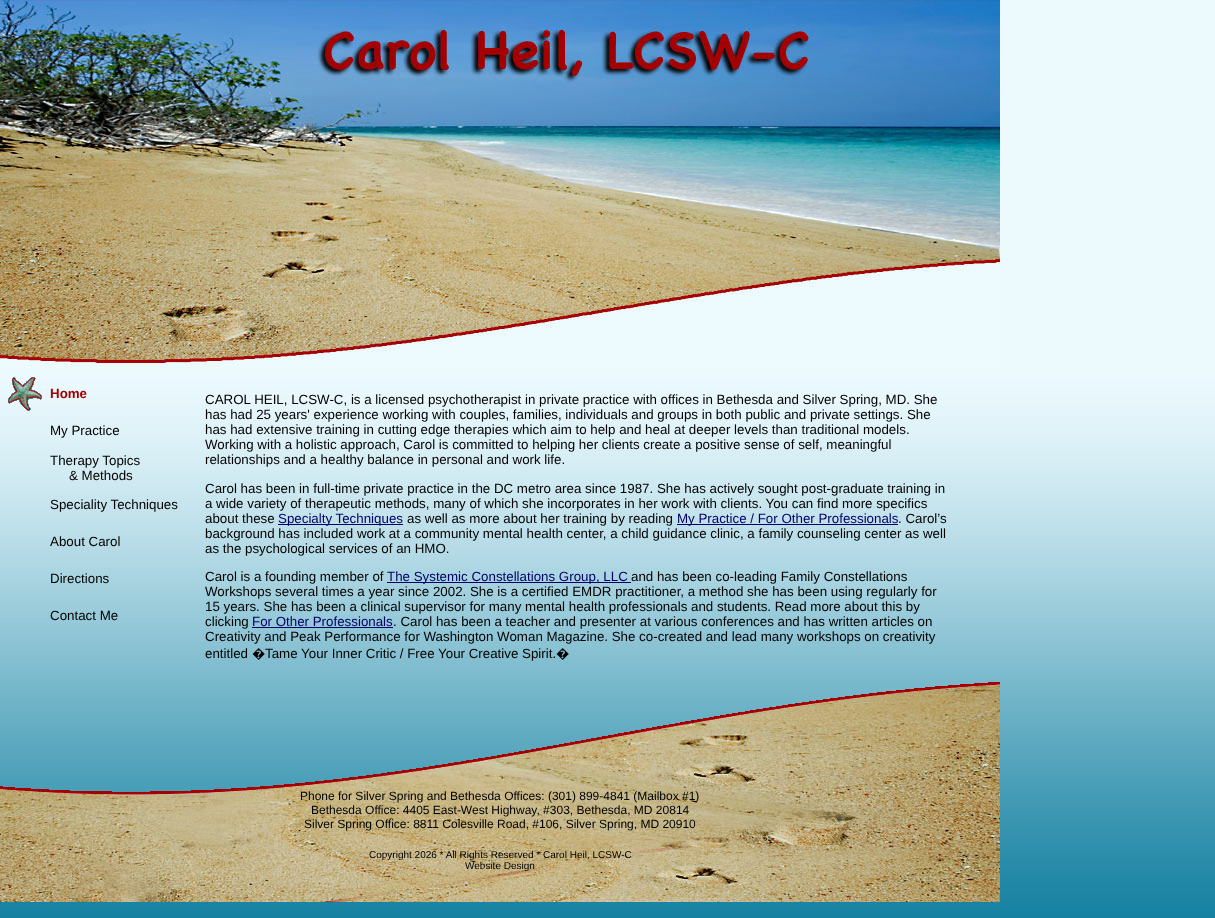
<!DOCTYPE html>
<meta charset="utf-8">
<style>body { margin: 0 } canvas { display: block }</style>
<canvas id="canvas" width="1215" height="918"></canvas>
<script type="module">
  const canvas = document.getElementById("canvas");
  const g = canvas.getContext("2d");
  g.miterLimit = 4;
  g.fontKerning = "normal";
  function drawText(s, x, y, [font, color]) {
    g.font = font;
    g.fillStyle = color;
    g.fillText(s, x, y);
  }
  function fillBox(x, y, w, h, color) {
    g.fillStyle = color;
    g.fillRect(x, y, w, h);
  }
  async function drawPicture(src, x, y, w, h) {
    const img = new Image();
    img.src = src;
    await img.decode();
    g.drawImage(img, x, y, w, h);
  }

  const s1 = ["bold 13.33px Liberation Sans", "#A30000"];
  const s2 = ["13.33px Liberation Sans", "#000000"];
  const s3 = ["13.33px Liberation Sans", "#000066"];
  const s4 = ["13.33px Noto Sans", "#000000"];
  const s5 = ["12px Liberation Sans", "#000000"];
  const s6 = ["10px Liberation Sans", "#000000"];

  fillBox(0, 0, 1215, 918, "#FFFFFF");
  await drawPicture("pic1.png", 0, 0, 1215, 918);
  await drawPicture("pic2.png", 0, 0, 1000, 368);
  await drawPicture("pic3.png", 8, 377, 34, 34);
  drawText("Home", 50, 398, s1);
  drawText("My Practice", 50, 435, s2);
  drawText("Therapy Topics", 50, 465, s2);
  drawText("& Methods", 69, 480, s2);
  drawText("Speciality Techniques", 50, 509, s2);
  drawText("About Carol", 50, 546, s2);
  drawText("Directions", 50, 583, s2);
  drawText("Contact Me", 50, 620, s2);
  drawText("CAROL HEIL, LCSW-C, is a licensed psychotherapist in private practice with offices in Bethesda and Silver Spring, MD. She", 205, 404, s2);
  drawText("has had 25 years' experience working with couples, families, individuals and groups in both public and private settings. She", 205, 419, s2);
  drawText("has had extensive training in cutting edge therapies which aim to help and heal at deeper levels than traditional models.", 205, 434, s2);
  drawText("Working with a holistic approach, Carol is committed to helping her clients create a positive sense of self, meaningful", 205, 449, s2);
  drawText("relationships and a healthy balance in personal and work life.", 205, 464, s2);
  drawText("Carol has been in full-time private practice in the DC metro area since 1987. She has actively sought post-graduate training in", 205, 493, s2);
  drawText("a wide variety of therapeutic methods, many of which she incorporates in her work with clients. You can find more specifics", 205, 508, s2);
  drawText("about these", 205, 523, s2);
  fillBox(278, 524, 125, 1, "#000066");
  drawText("Specialty Techniques", 278, 523, s3);
  drawText("as well as more about her training by reading", 407, 523, s2);
  fillBox(677, 524, 221, 1, "#000066");
  drawText("My Practice / For Other Professionals", 677, 523, s3);
  drawText(". Carol’s", 898, 523, s2);
  drawText("background has included work at a community mental health center, a child guidance clinic, a family counseling center as well", 205, 538, s2);
  drawText("as the psychological services of an HMO.", 205, 553, s2);
  drawText("Carol is a founding member of", 205, 581, s2);
  fillBox(387, 582, 244, 1, "#000066");
  drawText("The Systemic Constellations Group, LLC", 387, 581, s3);
  drawText("and has been co-leading Family Constellations", 631, 581, s2);
  drawText("Workshops several times a year since 2002. She is a certified EMDR practitioner, a method she has been using regularly for", 205, 596, s2);
  drawText("15 years. She has been a clinical supervisor for many mental health professionals and students. Read more about this by", 205, 611, s2);
  drawText("clicking", 205, 626, s2);
  drawText("For Other Professionals", 252, 626, s3);
  fillBox(252, 627, 141, 1, "#000066");
  drawText(". Carol has been a teacher and presenter at various conferences and has written articles on", 393, 626, s2);
  drawText("Creativity and Peak Performance for Washington Woman Magazine. She co-created and lead many workshops on creativity", 205, 641, s2);
  drawText("entitled", 205, 658, s2);
  drawText("�", 252, 658, s4);
  drawText("Tame Your Inner Critic / Free Your Creative Spirit.", 265, 658, s2);
  drawText("�", 556, 658, s4);
  await drawPicture("pic4.png", 0, 682, 1000, 220);
  drawText("Phone for Silver Spring and Bethesda Offices: (301) 899-4841 (Mailbox #1)", 300, 800, s5);
  drawText("Bethesda Office: 4405 East-West Highway, #303, Bethesda, MD 20814", 311, 814, s5);
  drawText("Silver Spring Office: 8811 Colesville Road, #106, Silver Spring, MD 20910", 304, 828, s5);
  drawText("Copyright 2026 * All Rights Reserved * Carol Heil, LCSW-C", 369, 858, s6);
  drawText("Website Design", 465, 869, s6);
</script>
